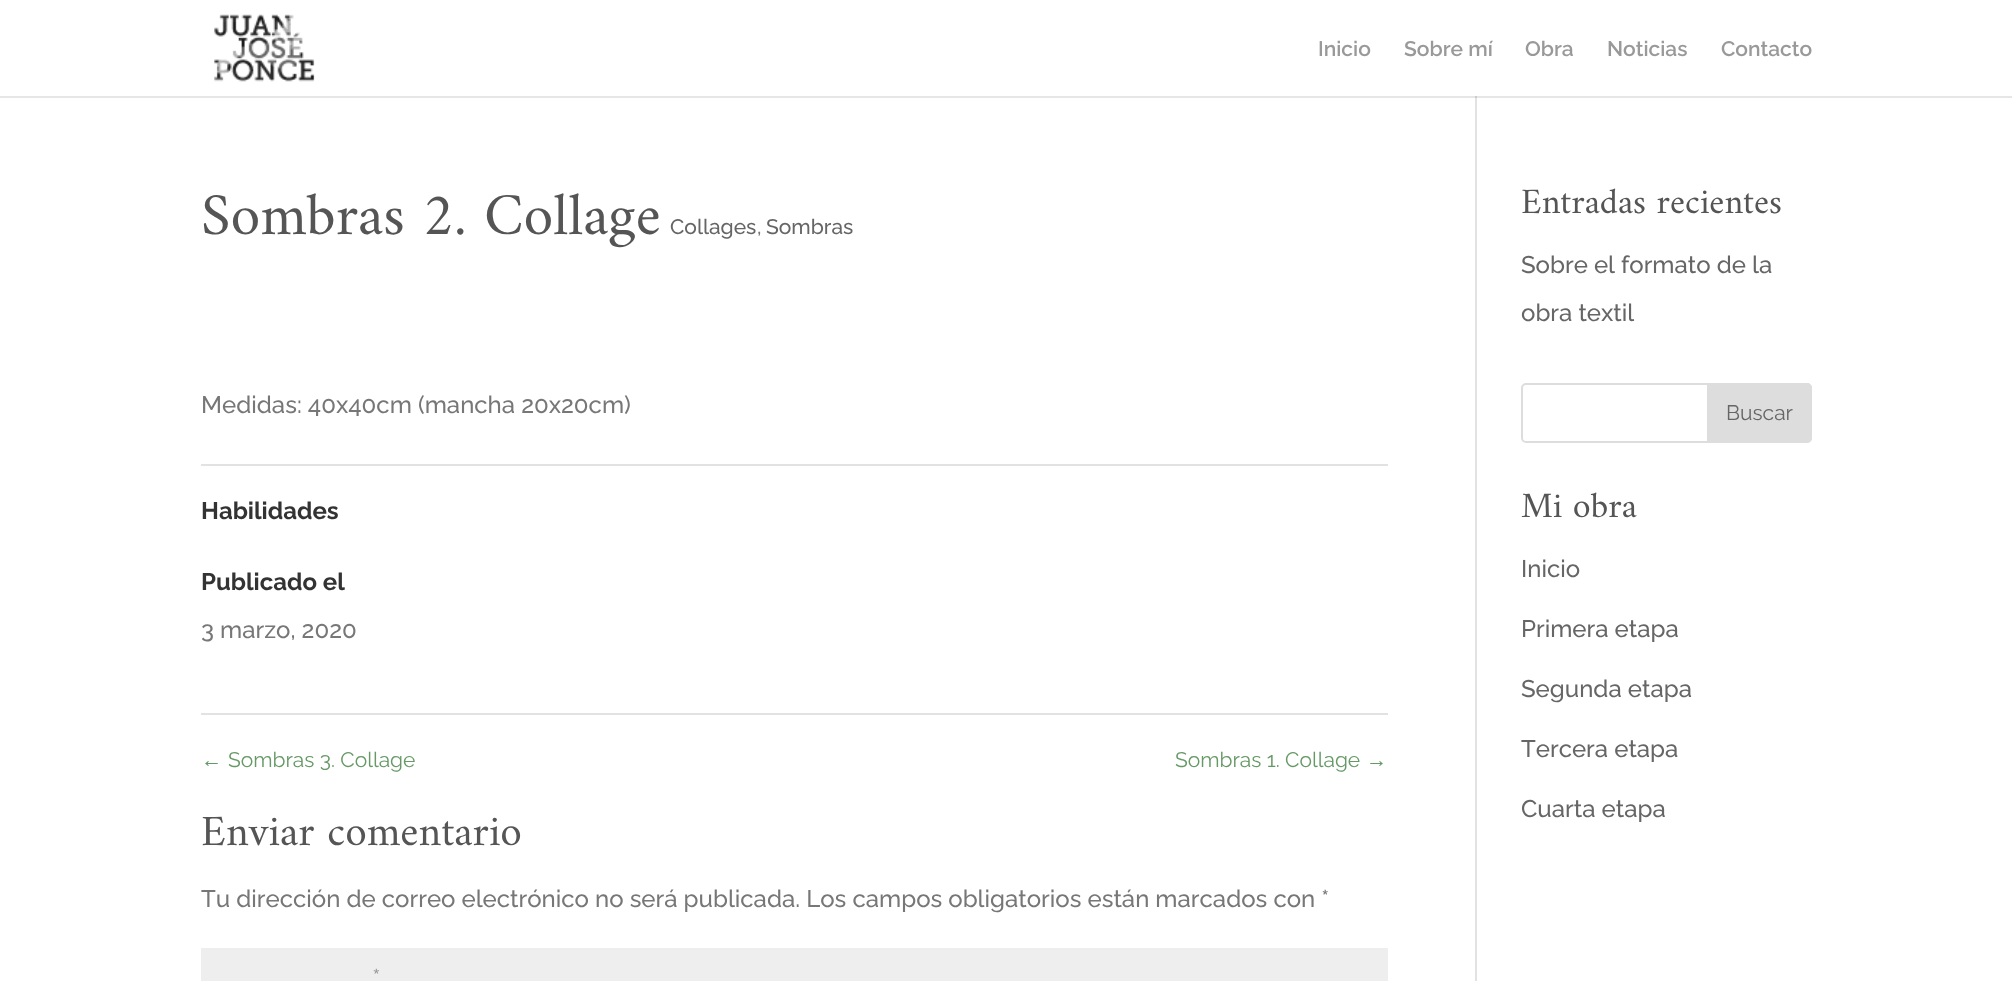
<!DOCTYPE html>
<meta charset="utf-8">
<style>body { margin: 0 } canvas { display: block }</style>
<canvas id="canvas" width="2012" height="981"></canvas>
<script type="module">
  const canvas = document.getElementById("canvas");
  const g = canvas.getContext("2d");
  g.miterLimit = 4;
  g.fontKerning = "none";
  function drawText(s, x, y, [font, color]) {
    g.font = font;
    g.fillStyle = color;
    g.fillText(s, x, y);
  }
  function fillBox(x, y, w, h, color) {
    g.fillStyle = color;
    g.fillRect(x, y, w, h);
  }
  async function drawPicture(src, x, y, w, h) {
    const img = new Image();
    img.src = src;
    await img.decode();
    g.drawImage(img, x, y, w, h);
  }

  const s1 = ["100 21px 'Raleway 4'", "#999999"];
  const s2 = ["60px Amiri", "#555555"];
  const s3 = ["100 21px 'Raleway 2'", "#666666"];
  const s4 = ["100 21px 'Raleway 2'", "#777777"];
  const s5 = ["100 24px 'Raleway 2'", "#777777"];
  const s6 = ["100 24px 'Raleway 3'", "#333333"];
  const s7 = ["21px Liberation Sans", "#669966"];
  const s8 = ["100 21px Raleway", "#669966"];
  const s9 = ["43.5px Amiri", "#555555"];
  const s10 = ["100 27px Raleway", "#999999"];
  const s11 = ["36px Amiri", "#555555"];
  const s12 = ["100 24px 'Raleway 2'", "#666666"];
  const s13 = ["100 21px Raleway", "#666666"];

  fillBox(0, 0, 2012, 981, "#FFFFFF");
  fillBox(0, 96, 2012, 2, "#E6E6E6");
  await drawPicture("pic1.png", 214, 14, 101, 68);
  drawText("Inicio", 1318, 56, s1);
  drawText("Sobre mí", 1404, 56, s1);
  drawText("Obra", 1525, 56, s1);
  drawText("Noticias", 1607, 56, s1);
  drawText("Contacto", 1721, 56, s1);
  fillBox(1475, 96, 2, 885, "#E2E2E2");
  fillBox(1475, 96, 2, 2, "#CBCBCB");
  drawText("Sombras 2. Collage", 201, 234, s2);
  drawText("Collages", 670, 234, s3);
  drawText(",", 757, 234, s4);
  drawText("Sombras", 766, 234, s3);
  drawText("Medidas: 40x40cm (mancha 20x20cm)", 201, 413, s5);
  fillBox(201, 464, 1187, 2, "#E2E2E2");
  fillBox(201, 713, 1187, 2, "#E2E2E2");
  drawText("Habilidades", 201, 519, s6);
  drawText("Publicado el", 201, 590, s6);
  drawText("3 marzo, 2020", 201, 638, s5);
  drawText("←", 201, 767, s7);
  drawText("Sombras 3. Collage", 228, 767, s8);
  drawText("Sombras 1. Collage", 1175, 767, s8);
  drawText("→", 1366, 767, s7);
  drawText("Enviar comentario", 201, 845, s9);
  drawText("Tu dirección de correo electrónico no será publicada. Los campos obligatorios están marcados con *", 201, 907, s5);
  fillBox(201, 948, 1187, 33, "#EEEEEE");
  drawText("*", 372, 988, s10);
  drawText("Entradas recientes", 1521, 213, s11);
  drawText("Sobre el formato de la", 1521, 273, s12);
  drawText("obra textil", 1521, 321, s12);
  g.beginPath();
  g.roundRect(1522, 384, 289, 58, 4);
  g.strokeStyle = "#DDDDDD";
  g.lineWidth = 2;
  g.stroke();
  g.fillStyle = "#DDDDDD";
  g.beginPath();
  g.roundRect(1708, 384, 103, 58, [0, 4, 4, 0]);
  g.fill();
  g.stroke();
  drawText("Buscar", 1726, 420, s13);
  drawText("Mi obra", 1521, 517, s11);
  drawText("Inicio", 1521, 577, s12);
  drawText("Primera etapa", 1521, 637, s12);
  drawText("Segunda etapa", 1521, 697, s12);
  drawText("Tercera etapa", 1521, 757, s12);
  drawText("Cuarta etapa", 1521, 817, s12);
</script>
